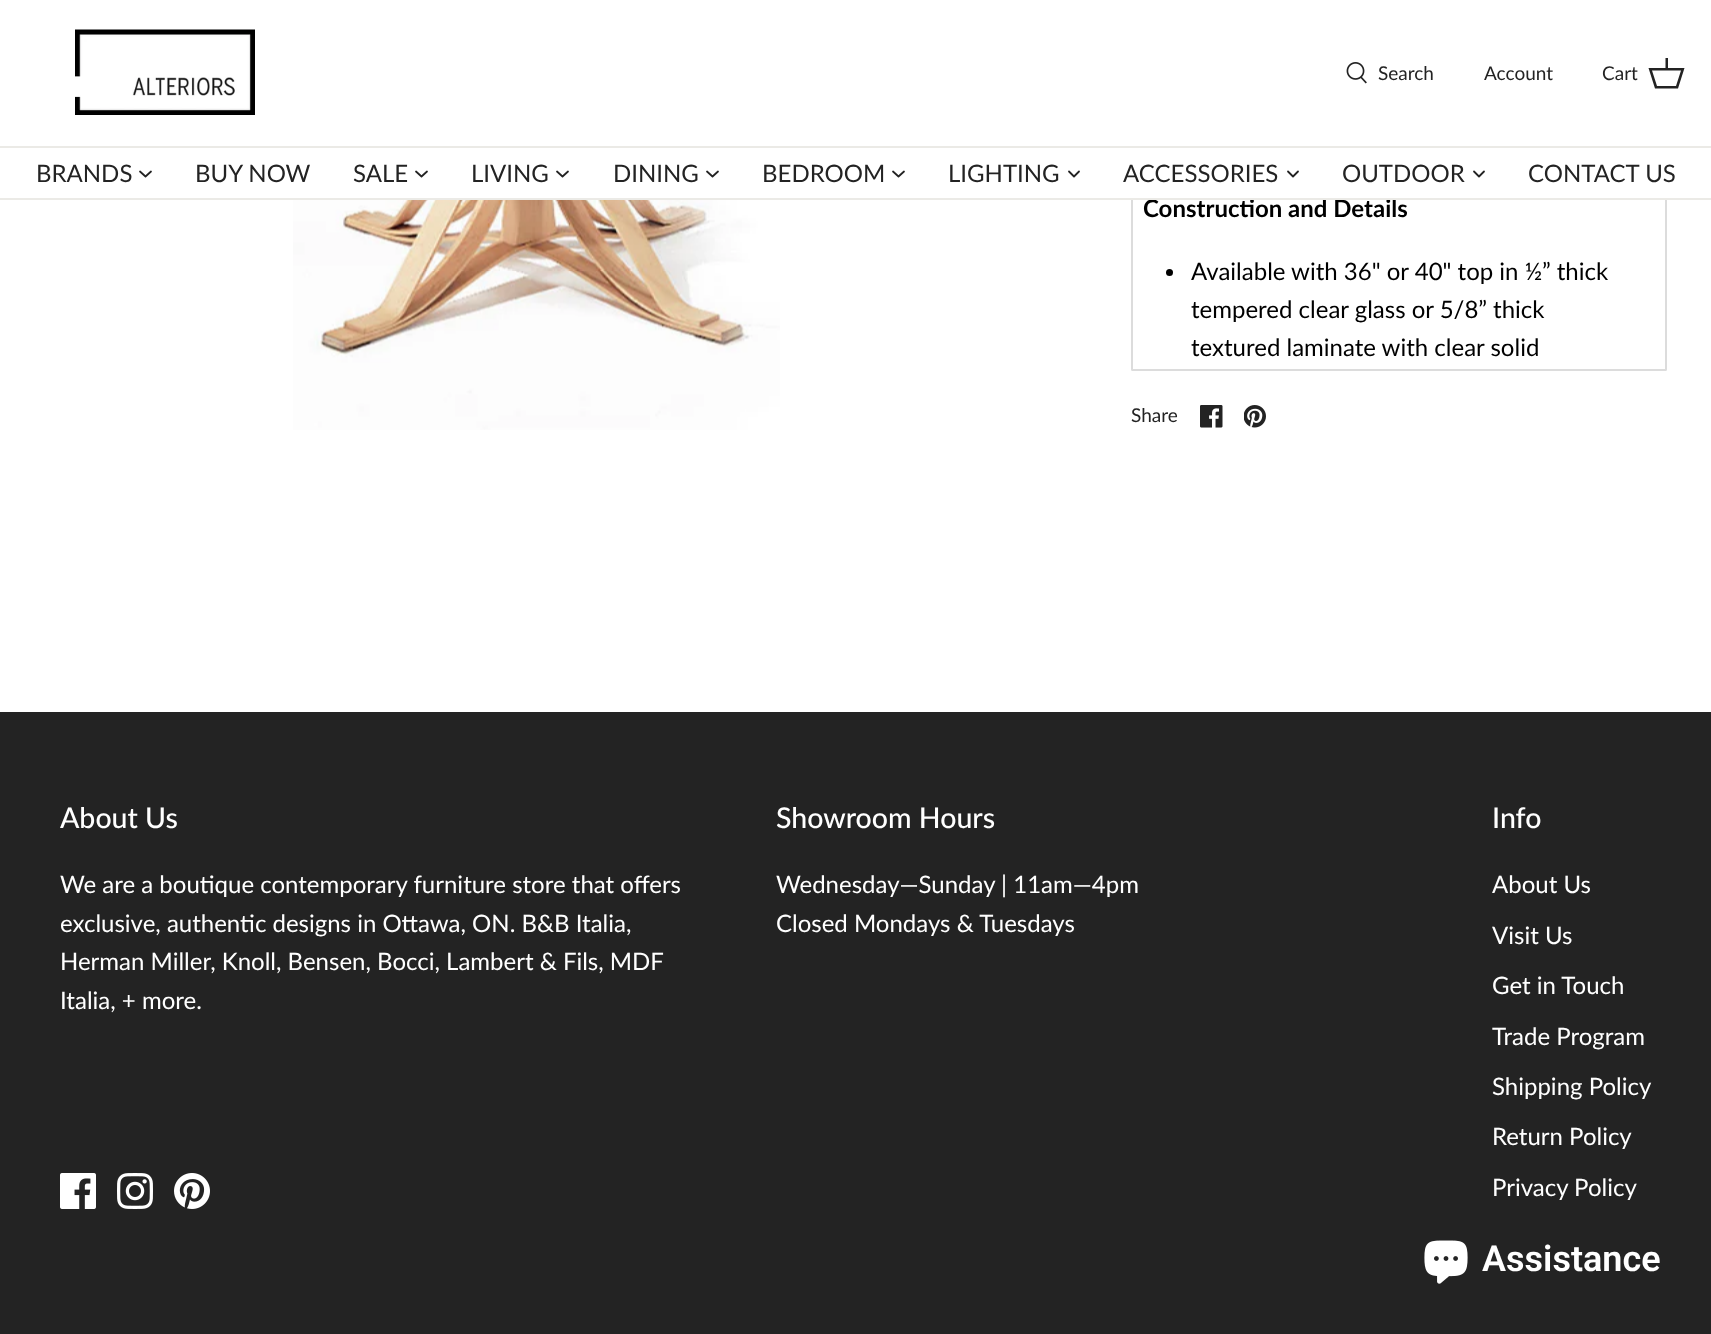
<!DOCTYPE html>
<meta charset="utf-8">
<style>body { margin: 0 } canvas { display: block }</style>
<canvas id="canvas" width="1711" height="1334"></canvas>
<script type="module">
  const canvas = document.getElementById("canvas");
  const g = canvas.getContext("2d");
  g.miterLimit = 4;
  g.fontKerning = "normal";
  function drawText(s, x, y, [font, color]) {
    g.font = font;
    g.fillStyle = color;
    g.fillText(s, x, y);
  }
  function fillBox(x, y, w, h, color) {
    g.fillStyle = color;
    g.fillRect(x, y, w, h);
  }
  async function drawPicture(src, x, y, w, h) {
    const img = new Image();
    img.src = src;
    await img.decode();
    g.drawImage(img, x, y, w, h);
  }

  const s1 = ["19px Lato", "#232323"];
  const s2 = ["bold 24px Lato", "#000000"];
  const s3 = ["24px Lato", "#232323"];
  const s4 = ["24px Lato", "#000000"];
  const s5 = ["500 28.5px Lato", "#FFFFFF"];
  const s6 = ["24px Lato", "#FFFFFF"];
  const s7 = ["600 36px Roboto", "#FFFFFF"];

  fillBox(0, 0, 1711, 1334, "#FFFFFF");
  g.beginPath();
  g.roundRect(1132, -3, 534, 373, 0.5);
  g.strokeStyle = "#DCDCDC";
  g.lineWidth = 2;
  g.stroke();
  fillBox(1131, 0, 536, 146, "#FFFFFF");
  fillBox(0, 146, 1711, 2, "#EBEAE6");
  await drawPicture("pic1.png", 75, 29, 180, 86);
  await drawPicture("pic2.png", 1346, 62, 21, 22);
  drawText("Search", 1378, 80, s1);
  drawText("Account", 1484, 80, s1);
  drawText("Cart", 1602, 80, s1);
  g.beginPath();
  g.moveTo(1665.5, 68);
  g.lineTo(1665.5, 58);
  g.lineTo(1668, 58);
  g.lineTo(1668, 68);
  g.lineTo(1684.5, 68);
  g.lineTo(1678, 88.5);
  g.lineTo(1655, 88.5);
  g.lineTo(1648.5, 68);
  g.closePath();
  g.moveTo(1652, 70.5);
  g.lineTo(1657, 86);
  g.lineTo(1676, 86);
  g.lineTo(1681, 70.5);
  g.closePath();
  g.fill();
  drawText("Construction and Details", 1143, 217, s2);
  fillBox(0, 198, 1711, 2, "#EBEAE6");
  fillBox(1131, 148, 536, 50, "#FFFFFF");
  drawText("BRANDS", 36, 182, s3);
  g.beginPath();
  g.moveTo(140, 171.5);
  g.lineTo(145.5, 176.5);
  g.lineTo(151, 171.5);
  g.strokeStyle = "#232323";
  g.lineWidth = 1.8;
  g.lineCap = "round";
  g.lineJoin = "round";
  g.stroke();
  drawText("BUY NOW", 195, 182, s3);
  drawText("SALE", 353, 182, s3);
  g.beginPath();
  g.moveTo(416, 171.5);
  g.lineTo(421.5, 176.5);
  g.lineTo(427, 171.5);
  g.stroke();
  drawText("LIVING", 471, 182, s3);
  g.beginPath();
  g.moveTo(557, 171.5);
  g.lineTo(562.5, 176.5);
  g.lineTo(568, 171.5);
  g.stroke();
  drawText("DINING", 613, 182, s3);
  g.beginPath();
  g.moveTo(707, 171.5);
  g.lineTo(712.5, 176.5);
  g.lineTo(718, 171.5);
  g.stroke();
  drawText("BEDROOM", 762, 182, s3);
  g.beginPath();
  g.moveTo(893, 171.5);
  g.lineTo(898.5, 176.5);
  g.lineTo(904, 171.5);
  g.stroke();
  drawText("LIGHTING", 948, 182, s3);
  g.beginPath();
  g.moveTo(1069, 171.5);
  g.lineTo(1074, 176.5);
  g.lineTo(1079, 171.5);
  g.stroke();
  drawText("ACCESSORIES", 1123, 182, s3);
  g.beginPath();
  g.moveTo(1288, 171.5);
  g.lineTo(1293, 176.5);
  g.lineTo(1298, 171.5);
  g.stroke();
  drawText("OUTDOOR", 1342, 182, s3);
  g.beginPath();
  g.moveTo(1474, 171.5);
  g.lineTo(1479, 176.5);
  g.lineTo(1484, 171.5);
  g.stroke();
  drawText("CONTACT US", 1528, 182, s3);
  await drawPicture("pic3.png", 293, 200, 487, 230);
  g.fillStyle = "#000000";
  g.beginPath();
  g.arc(1169.5, 272.5, 3.5, 0, Math.PI * 2);
  g.fill();
  drawText("Available with 36\" or 40\" top in ½” thick", 1191, 280, s4);
  drawText("tempered clear glass or 5/8” thick", 1191, 318, s4);
  drawText("textured laminate with clear solid", 1191, 356, s4);
  drawText("Share", 1131, 422, s1);
  await drawPicture("pic4.png", 1200, 405, 23, 23);
  await drawPicture("pic5.png", 1244, 405, 22, 23);
  fillBox(0, 712, 1711, 622, "#232323");
  drawText("About Us", 60, 828, s5);
  drawText("We are a boutique contemporary furniture store that offers", 60, 893, s6);
  drawText("exclusive, authentic designs in Ottawa, ON. B&B Italia,", 60, 932, s6);
  drawText("Herman Miller, Knoll, Bensen, Bocci, Lambert & Fils, MDF", 60, 970, s6);
  drawText("Italia, + more.", 60, 1009, s6);
  await drawPicture("pic6.png", 60, 1173, 36, 36);
  await drawPicture("pic7.png", 117, 1173, 36, 36);
  await drawPicture("pic8.png", 174, 1173, 36, 36);
  drawText("Showroom Hours", 776, 828, s5);
  drawText("Wednesday—Sunday | 11am—4pm", 776, 893, s6);
  drawText("Closed Mondays & Tuesdays", 776, 932, s6);
  drawText("Info", 1492, 828, s5);
  drawText("About Us", 1492, 893, s6);
  drawText("Visit Us", 1492, 944, s6);
  drawText("Get in Touch", 1492, 994, s6);
  drawText("Trade Program", 1492, 1045, s6);
  drawText("Shipping Policy", 1492, 1095, s6);
  drawText("Return Policy", 1492, 1145, s6);
  drawText("Privacy Policy", 1492, 1196, s6);
  await drawPicture("pic9.png", 1424, 1240, 44, 44);
  drawText("Assistance", 1482, 1271, s7);
</script>
